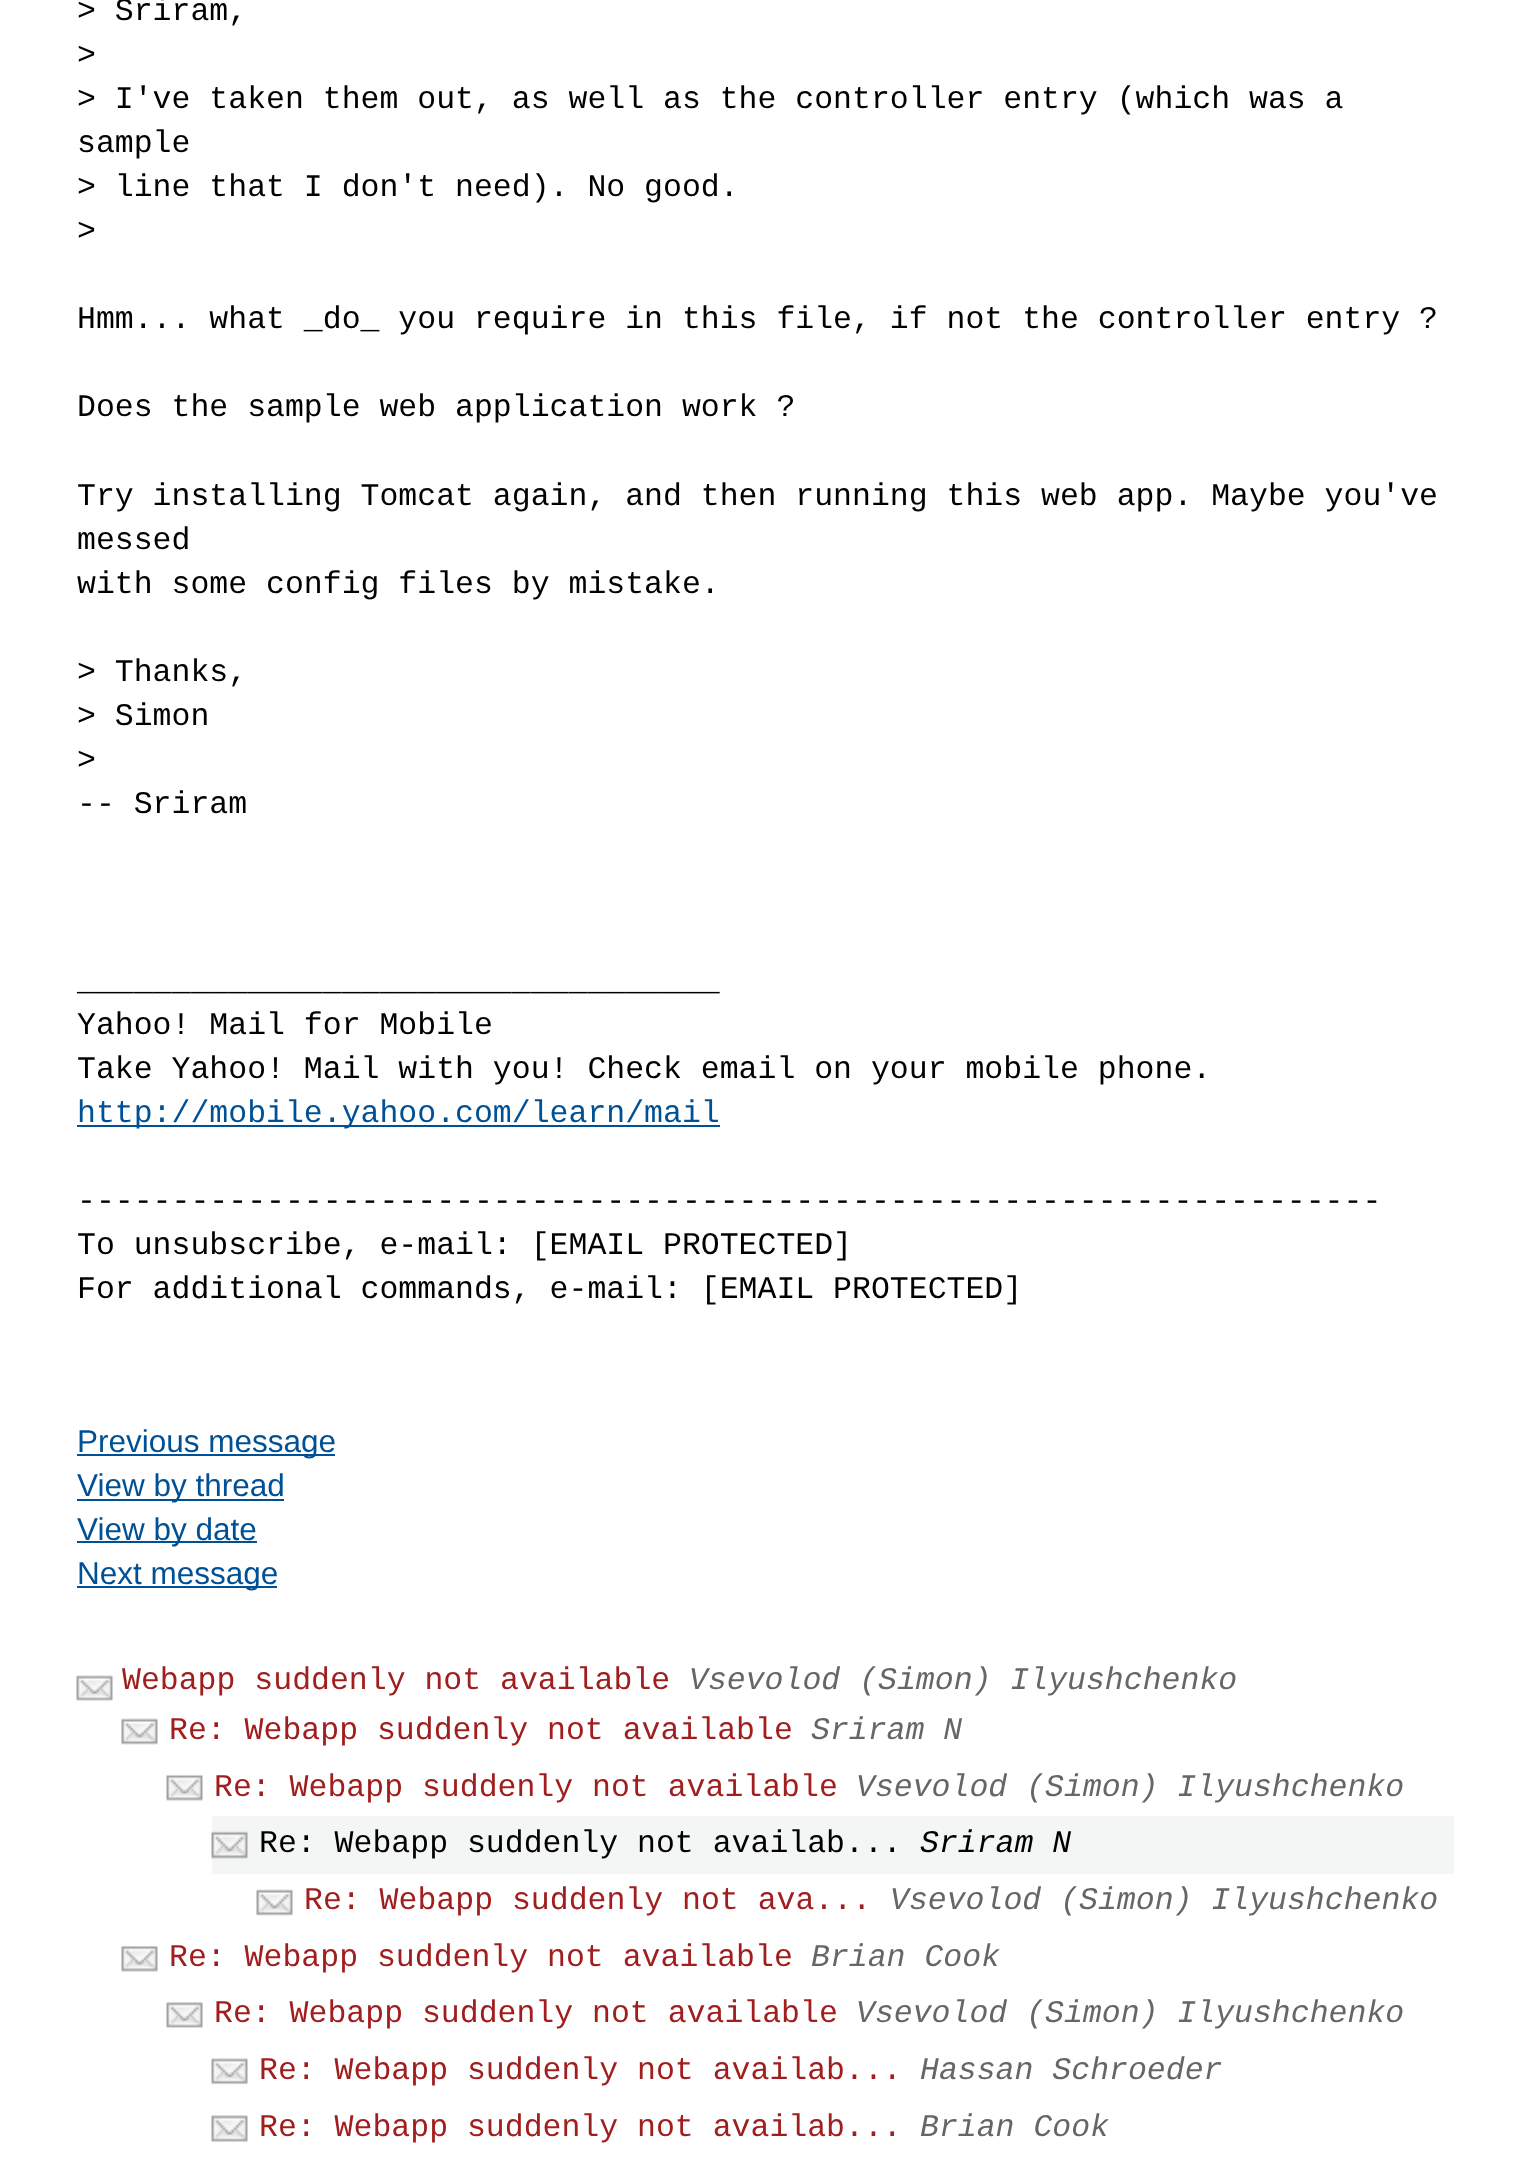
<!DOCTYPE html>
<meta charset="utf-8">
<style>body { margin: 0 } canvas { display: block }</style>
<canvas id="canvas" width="1530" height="2174"></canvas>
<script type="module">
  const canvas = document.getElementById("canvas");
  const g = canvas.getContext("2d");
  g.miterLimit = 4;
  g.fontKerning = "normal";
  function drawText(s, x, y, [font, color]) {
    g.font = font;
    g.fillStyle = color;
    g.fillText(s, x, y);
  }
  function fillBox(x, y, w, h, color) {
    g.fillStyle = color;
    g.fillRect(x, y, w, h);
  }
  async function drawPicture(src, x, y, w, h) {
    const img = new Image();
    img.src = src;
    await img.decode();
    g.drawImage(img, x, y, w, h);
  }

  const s1 = ["31.5px Liberation Mono", "#000000"];
  const s2 = ["31.5px Liberation Mono", "#005096"];
  const s3 = ["31.5px Liberation Sans", "#005096"];
  const s4 = ["31.5px Liberation Mono", "#A01E1E"];
  const s5 = ["italic 31.5px Liberation Mono", "#666666"];
  const s6 = ["italic 31.5px Liberation Mono", "#000000"];

  fillBox(0, 0, 1530, 2174, "#FFFFFF");
  drawText("> Sriram,", 77, 20, s1);
  drawText(">", 77, 64, s1);
  drawText("> I've taken them out, as well as the controller entry (which was a", 77, 108, s1);
  drawText("sample", 77, 152, s1);
  drawText("> line that I don't need). No good.", 77, 196, s1);
  drawText(">", 77, 240, s1);
  drawText("Hmm... what _do_ you require in this file, if not the controller entry ?", 77, 328, s1);
  drawText("Does the sample web application work ?", 77, 416, s1);
  drawText("Try installing Tomcat again, and then running this web app. Maybe you've", 77, 505, s1);
  drawText("messed", 77, 549, s1);
  drawText("with some config files by mistake.", 77, 593, s1);
  drawText("> Thanks,", 77, 681, s1);
  drawText("> Simon", 77, 725, s1);
  drawText(">", 77, 769, s1);
  drawText("-- Sriram", 77, 813, s1);
  drawText("__________________________________", 77, 990, s1);
  drawText("Yahoo! Mail for Mobile", 77, 1034, s1);
  drawText("Take Yahoo! Mail with you! Check email on your mobile phone.", 77, 1078, s1);
  fillBox(77, 1125, 643, 2, "#005096");
  drawText("http://mobile.yahoo.com/learn/mail", 77, 1122, s2);
  drawText("---------------------------------------------------------------------", 77, 1210, s1);
  drawText("To unsubscribe, e-mail: [EMAIL PROTECTED]", 77, 1254, s1);
  drawText("For additional commands, e-mail: [EMAIL PROTECTED]", 77, 1298, s1);
  fillBox(77, 1454, 258, 2, "#005096");
  drawText("Previous message", 77, 1452, s3);
  fillBox(77, 1499, 207, 2, "#005096");
  drawText("View by thread", 77, 1496, s3);
  fillBox(77, 1541, 180, 2, "#005096");
  drawText("View by date", 77, 1540, s3);
  fillBox(77, 1586, 200, 2, "#005096");
  drawText("Next message", 77, 1584, s3);
  await drawPicture("pic1.png", 76, 1675, 37, 26);
  drawText("Webapp suddenly not available", 122, 1689, s4);
  drawText("Vsevolod (Simon) Ilyushchenko", 689, 1689, s5);
  await drawPicture("pic2.png", 121, 1718, 37, 27);
  drawText("Re: Webapp suddenly not available", 169, 1739, s4);
  drawText("Sriram N", 811, 1739, s5);
  await drawPicture("pic3.png", 166, 1774, 37, 27);
  drawText("Re: Webapp suddenly not available", 214, 1796, s4);
  drawText("Vsevolod (Simon) Ilyushchenko", 856, 1796, s5);
  fillBox(212, 1816, 1242, 58, "#F4F5F5");
  await drawPicture("pic4.png", 211, 1831, 37, 28);
  drawText("Re: Webapp suddenly not availab...", 259, 1852, s1);
  drawText("Sriram N", 920, 1852, s6);
  await drawPicture("pic2.png", 256, 1889, 37, 27);
  drawText("Re: Webapp suddenly not ava...", 304, 1909, s4);
  drawText("Vsevolod (Simon) Ilyushchenko", 890, 1909, s5);
  await drawPicture("pic5.png", 121, 1945, 37, 27);
  drawText("Re: Webapp suddenly not available", 169, 1966, s4);
  drawText("Brian Cook", 811, 1966, s5);
  await drawPicture("pic6.png", 166, 2002, 37, 26);
  drawText("Re: Webapp suddenly not available", 214, 2022, s4);
  drawText("Vsevolod (Simon) Ilyushchenko", 856, 2022, s5);
  await drawPicture("pic7.png", 211, 2058, 37, 27);
  drawText("Re: Webapp suddenly not availab...", 259, 2079, s4);
  drawText("Hassan Schroeder", 920, 2079, s5);
  await drawPicture("pic8.png", 211, 2115, 37, 27);
  drawText("Re: Webapp suddenly not availab...", 259, 2136, s4);
  drawText("Brian Cook", 920, 2136, s5);
</script>
